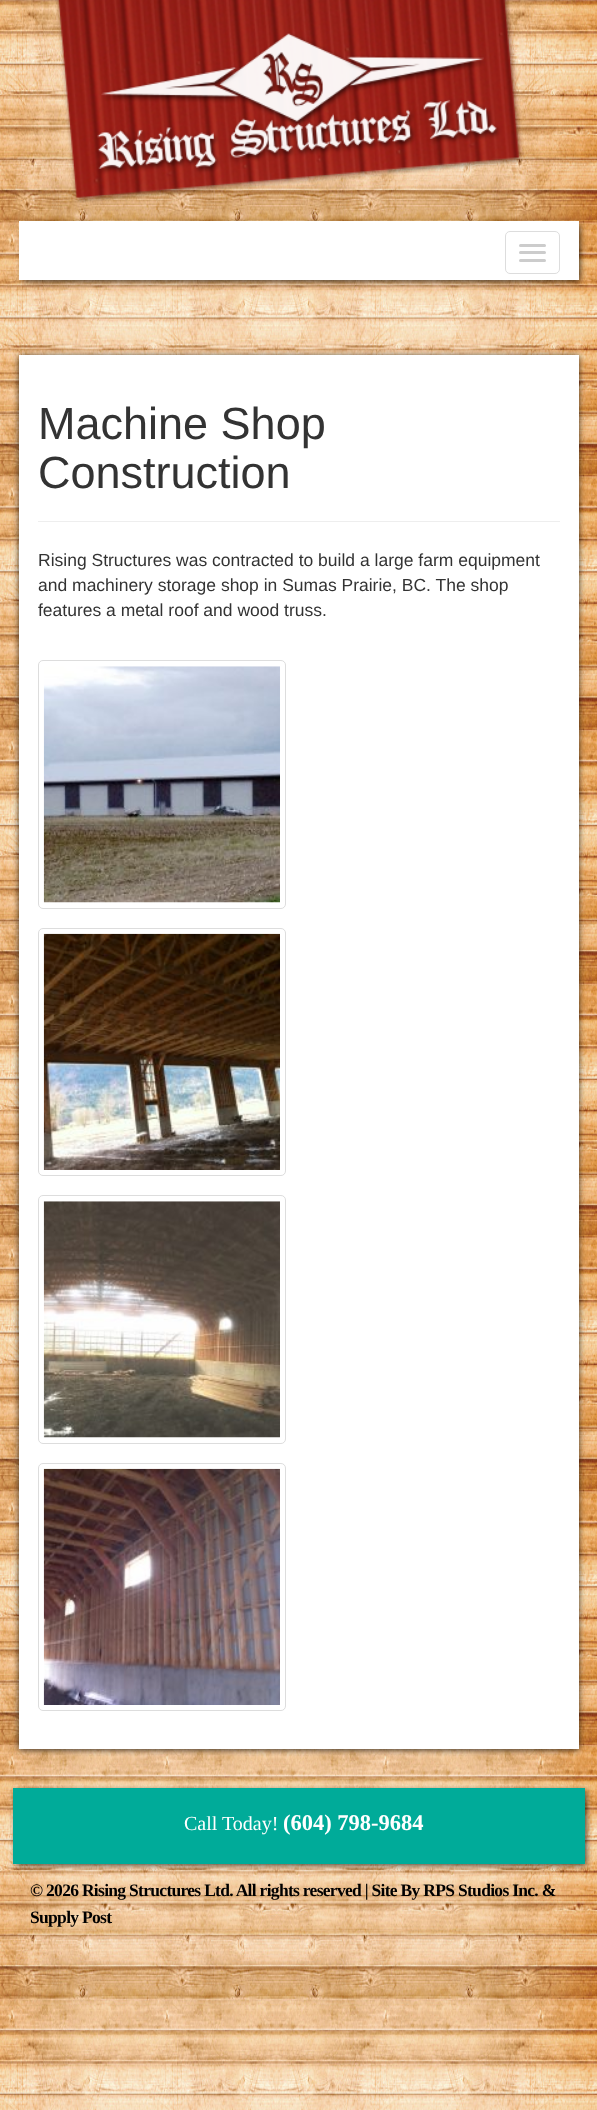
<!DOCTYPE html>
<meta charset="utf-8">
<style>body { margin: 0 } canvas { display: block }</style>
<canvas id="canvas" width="597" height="2110"></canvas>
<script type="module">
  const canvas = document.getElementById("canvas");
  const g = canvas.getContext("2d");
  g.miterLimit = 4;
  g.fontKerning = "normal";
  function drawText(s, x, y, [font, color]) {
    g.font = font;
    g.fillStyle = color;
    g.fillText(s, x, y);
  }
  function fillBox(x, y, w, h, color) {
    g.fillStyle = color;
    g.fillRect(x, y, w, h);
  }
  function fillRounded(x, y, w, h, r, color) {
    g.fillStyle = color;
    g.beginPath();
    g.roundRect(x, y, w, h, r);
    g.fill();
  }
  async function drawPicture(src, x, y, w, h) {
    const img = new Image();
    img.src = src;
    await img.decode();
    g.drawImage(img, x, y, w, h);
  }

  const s1 = ["45px Liberation Sans", "#333333"];
  const s2 = ["17.5px Liberation Sans", "#333333"];
  const s3 = ["20px Liberation Serif", "#FFFFFF"];
  const s4 = ["bold 22.5px Liberation Serif", "#FFFFFF"];
  const s5 = ["bold 17.5px Liberation Serif", "#000000"];

  fillBox(0, 0, 597, 2110, "#FFFFFF");
  await drawPicture("pic1.png", 0, 0, 597, 2110);
  await drawPicture("pic2.png", 55, 0, 469, 203);
  g.fillStyle = "rgba(0, 0, 0, 0.75)";
  g.filter = "blur(3px)";
  g.beginPath();
  g.rect(23, 225, 557, 56);
  g.fill();
  g.filter = "none";
  fillBox(19, 221, 560, 59, "#FFFFFF");
  g.beginPath();
  g.roundRect(505.5, 231.5, 54, 42, 4.5);
  g.strokeStyle = "#DDDDDD";
  g.stroke();
  fillRounded(519, 244, 27, 3, 1.5, "#CCCCCC");
  fillRounded(519, 251, 27, 3, 1.5, "#CCCCCC");
  fillRounded(519, 259, 27, 3, 1.5, "#CCCCCC");
  g.fillStyle = "rgba(0, 0, 0, 0.75)";
  g.filter = "blur(3px)";
  g.beginPath();
  g.rect(19, 356, 560, 1394);
  g.fill();
  g.filter = "none";
  fillBox(19, 355, 560, 1394, "#FFFFFF");
  fillBox(38, 521, 522, 1, "#EEEEEE");
  drawText("Machine Shop", 38, 439, s1);
  drawText("Construction", 38, 488, s1);
  drawText("Rising Structures was contracted to build a large farm equipment", 38, 566, s2);
  drawText("and machinery storage shop in Sumas Prairie, BC. The shop", 38, 591, s2);
  drawText("features a metal roof and wood truss.", 38, 616, s2);
  g.beginPath();
  g.roundRect(38.5, 660.5, 247, 248, 4.5);
  g.stroke();
  await drawPicture("pic3.png", 43, 666, 237, 237);
  g.beginPath();
  g.roundRect(38.5, 928.5, 247, 247, 4.5);
  g.stroke();
  await drawPicture("pic4.png", 43, 933, 237, 237);
  g.beginPath();
  g.roundRect(38.5, 1195.5, 247, 248, 4.5);
  g.stroke();
  await drawPicture("pic5.png", 43, 1201, 237, 237);
  g.beginPath();
  g.roundRect(38.5, 1463.5, 247, 247, 4.5);
  g.stroke();
  await drawPicture("pic6.png", 43, 1468, 237, 237);
  g.fillStyle = "rgba(0, 0, 0, 0.75)";
  g.filter = "blur(3px)";
  g.beginPath();
  g.rect(16, 1791, 570, 74);
  g.fill();
  g.filter = "none";
  fillBox(13, 1788, 572, 76, "#00AB99");
  drawText("Call Today!", 184, 1830, s3);
  drawText("(604) 798-9684", 283, 1830, s4);
  g.letterSpacing = "-0.7px";
  drawText("© 2026 Rising Structures Ltd. All rights reserved | Site By RPS Studios Inc. &", 30, 1896, s5);
  drawText("Supply Post", 30, 1923, s5);
</script>
